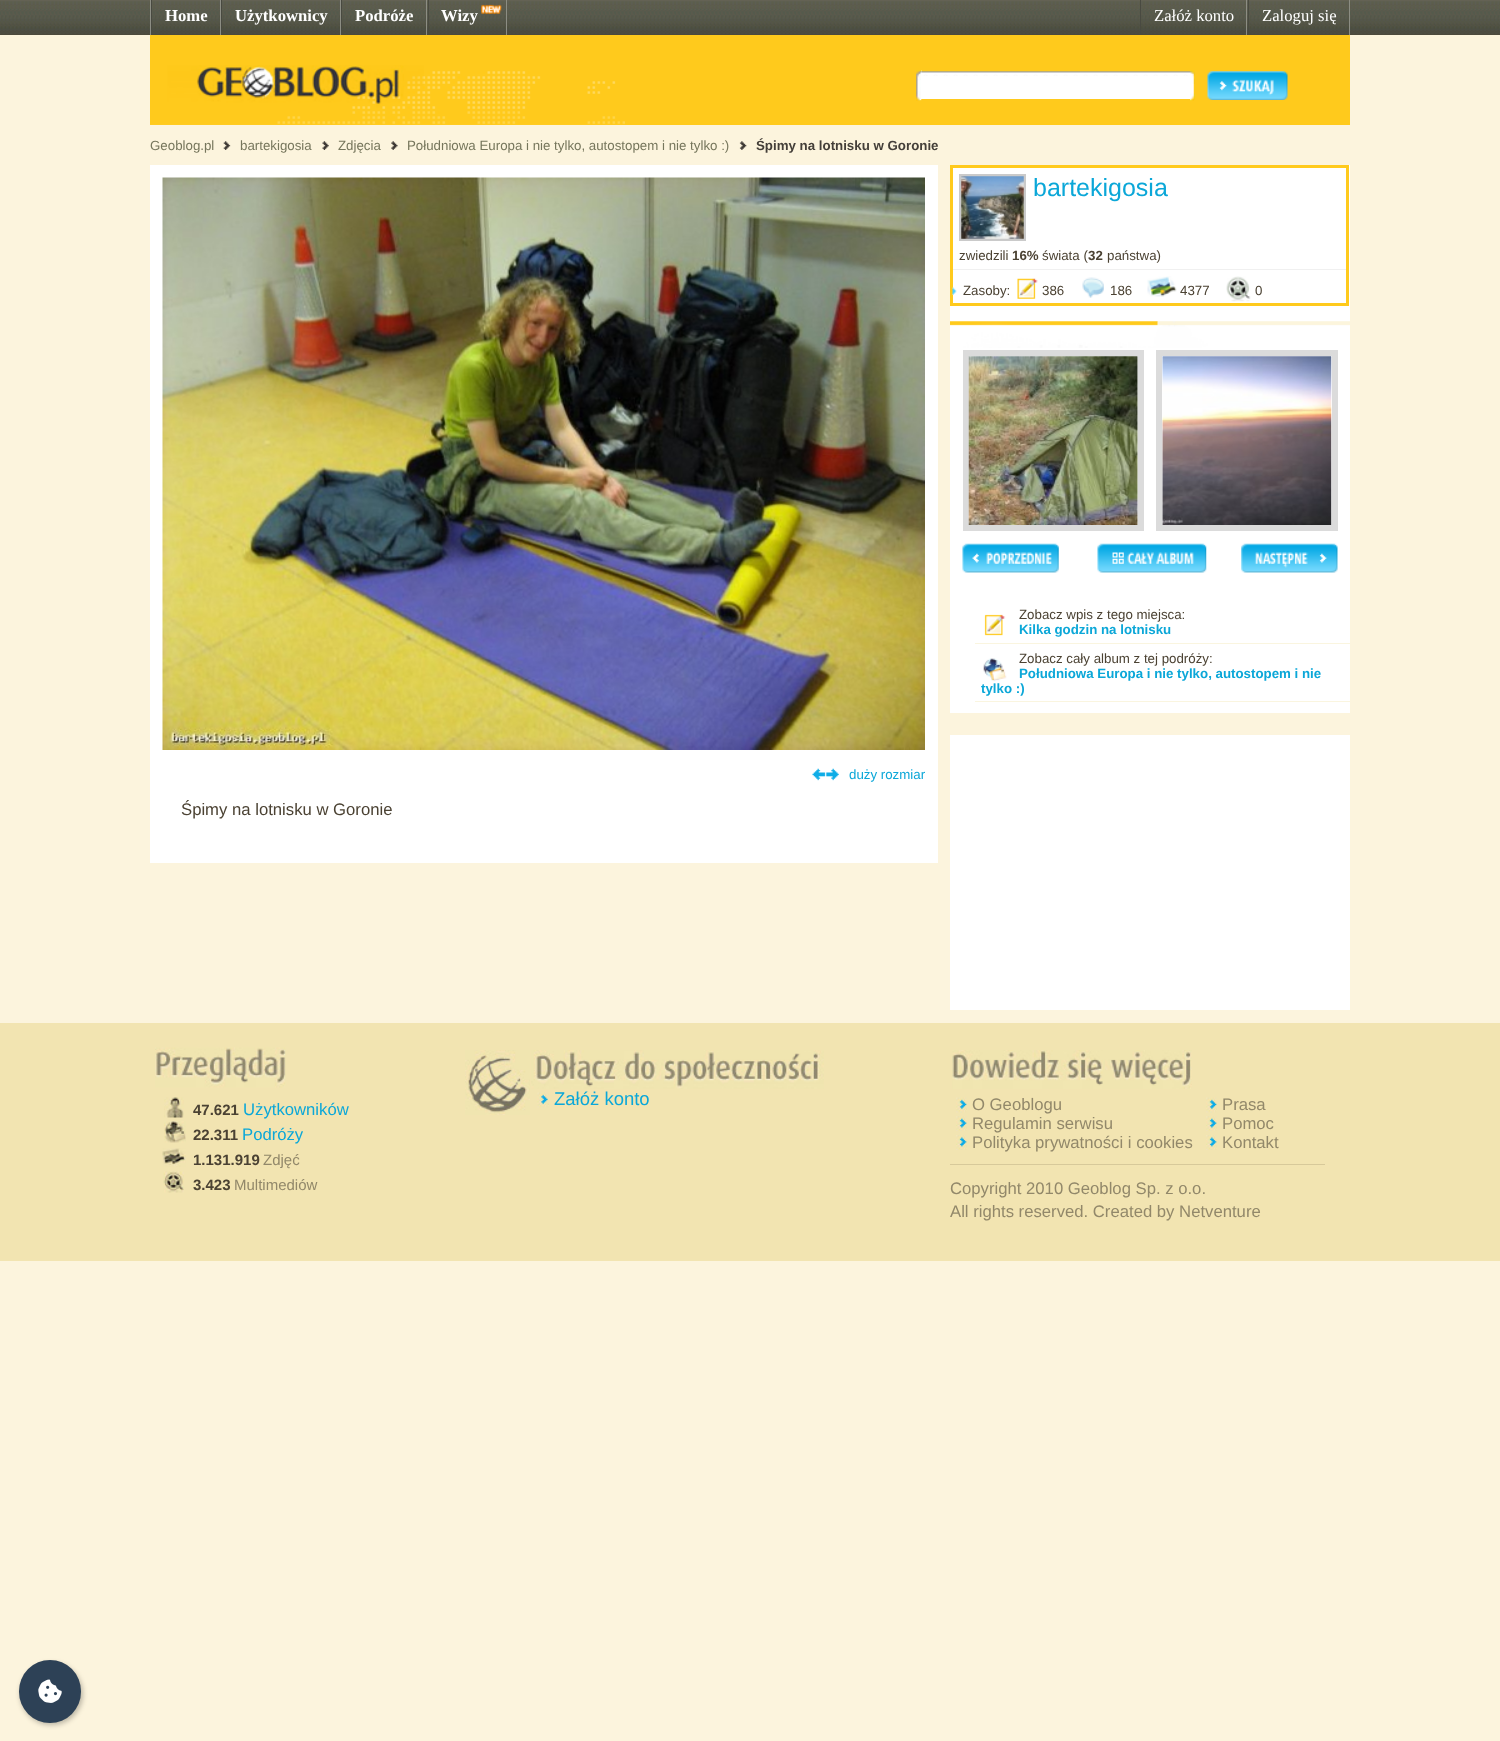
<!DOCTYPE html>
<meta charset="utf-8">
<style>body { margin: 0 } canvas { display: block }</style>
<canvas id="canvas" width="1500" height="1741"></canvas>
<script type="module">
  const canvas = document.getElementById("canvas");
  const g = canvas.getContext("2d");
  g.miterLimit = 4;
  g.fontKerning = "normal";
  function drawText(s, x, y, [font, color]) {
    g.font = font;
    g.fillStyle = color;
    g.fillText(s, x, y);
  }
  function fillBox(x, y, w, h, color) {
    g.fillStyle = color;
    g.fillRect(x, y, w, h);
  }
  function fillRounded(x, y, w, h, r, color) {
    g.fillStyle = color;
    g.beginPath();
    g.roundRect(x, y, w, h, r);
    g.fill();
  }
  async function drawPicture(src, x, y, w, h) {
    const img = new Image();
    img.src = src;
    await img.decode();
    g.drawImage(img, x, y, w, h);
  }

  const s1 = ["bold 16.7px Liberation Serif", "#FFFFFF"];
  const s2 = ["16.7px Liberation Serif", "#FFFFFF"];
  const s3 = ["13.3px Liberation Sans", "#76765C"];
  const s4 = ["bold 13.3px Liberation Sans", "#443F39"];
  const s5 = ["25px Liberation Sans", "#0BA7D8"];
  const s6 = ["13.3px Liberation Sans", "#4B4233"];
  const s7 = ["bold 13.3px Liberation Sans", "#4B4233"];
  const s8 = ["bold 13.3px Liberation Sans", "#0BA7D8"];
  const s9 = ["13.3px Liberation Sans", "#0BA7D8"];
  const s10 = ["16.7px Liberation Sans", "#4B4233"];
  const s11 = ["18.5px Liberation Sans", "#0BA7D8"];
  const s12 = ["bold 15px Liberation Sans", "#4B4233"];
  const s13 = ["16.7px Liberation Sans", "#0BA7D8"];
  const s14 = ["15px Liberation Sans", "#92886A"];
  const s15 = ["16.7px Liberation Sans", "#92886A"];

  fillBox(0, 0, 1500, 1741, "#FCF4DD");
  await drawPicture("pic1.png", 0, 0, 1500, 35);
  fillBox(150, 0, 1, 35, "#8C8D83");
  fillBox(220, 0, 1, 35, "#8C8D83");
  fillBox(151, 0, 1, 35, "#494A41");
  drawText("Home", 165, 21, s1);
  fillBox(340, 0, 1, 35, "#8C8D83");
  fillBox(221, 0, 1, 35, "#494A41");
  drawText("Użytkownicy", 235, 21, s1);
  fillBox(426, 0, 1, 35, "#8C8D83");
  fillBox(341, 0, 1, 35, "#494A41");
  drawText("Podróże", 355, 21, s1);
  fillBox(506, 0, 1, 35, "#8C8D83");
  fillBox(428, 0, 1, 35, "#494A41");
  drawText("Wizy", 441, 21, s1);
  await drawPicture("pic2.png", 481, 4, 21, 10);
  fillBox(1246, 0, 1, 35, "#8C8D83");
  fillBox(1140, 0, 1, 35, "#494A41");
  drawText("Załóż konto", 1154, 21, s2);
  fillBox(1349, 0, 1, 35, "#8C8D83");
  fillBox(1248, 0, 1, 35, "#494A41");
  drawText("Zaloguj się", 1262, 21, s2);
  fillBox(150, 35, 1200, 90, "#FFCA1C");
  await drawPicture("pic3.png", 150, 65, 475, 60);
  await drawPicture("pic4.png", 916, 70, 6, 31);
  fillBox(921, 70, 269, 29, "#FFFFFF");
  await drawPicture("pic5.png", 921, 70, 269, 6);
  await drawPicture("pic6.png", 1190, 70, 5, 31);
  await drawPicture("pic7.png", 1207, 71, 81, 29);
  drawText("Geoblog.pl", 150, 150, s3);
  await drawPicture("pic8.png", 223, 141, 8, 9);
  drawText("bartekigosia", 240, 150, s3);
  await drawPicture("pic9.png", 322, 141, 7, 9);
  drawText("Zdjęcia", 338, 150, s3);
  await drawPicture("pic10.png", 391, 141, 7, 9);
  drawText("Południowa Europa i nie tylko, autostopem i nie tylko :)", 407, 150, s3);
  await drawPicture("pic11.png", 739, 141, 8, 9);
  drawText("Śpimy na lotnisku w Goronie", 756, 150, s4);
  fillBox(950, 165, 400, 548, "#FFFFFF");
  g.strokeStyle = "#FFCA1C";
  g.lineWidth = 3;
  g.strokeRect(951.5, 166.5, 396, 138);
  fillBox(953, 269, 393, 1, "#F0F0F0");
  g.strokeStyle = "#CACACA";
  g.strokeRect(960.5, 175.5, 64, 64);
  await drawPicture("pic12.png", 961, 176, 63, 63);
  drawText("bartekigosia", 1033, 196, s5);
  drawText("zwiedzili", 959, 260, s6);
  drawText("16%", 1012, 260, s7);
  drawText("świata (", 1042, 260, s6);
  drawText("32", 1088, 260, s7);
  drawText("państwa)", 1107, 260, s6);
  await drawPicture("pic13.png", 952, 287, 5, 8);
  drawText("Zasoby:", 963, 295, s6);
  await drawPicture("pic14.png", 1017, 278, 21, 21);
  drawText("386", 1042, 295, s6);
  await drawPicture("pic15.png", 1082, 277, 22, 21);
  drawText("186", 1110, 295, s6);
  await drawPicture("pic16.png", 1147, 276, 30, 21);
  drawText("4377", 1180, 295, s6);
  await drawPicture("pic17.png", 1226, 276, 25, 26);
  drawText("0", 1255, 295, s6);
  await drawPicture("pic18.png", 950, 321, 400, 27);
  g.strokeStyle = "#DBDBDB";
  g.lineWidth = 6;
  g.strokeRect(966, 353, 175, 175);
  await drawPicture("pic19.png", 968, 356, 170, 169);
  g.strokeRect(1159, 353, 176, 175);
  await drawPicture("pic20.png", 1162, 356, 170, 169);
  await drawPicture("pic21.png", 962, 543, 97, 30);
  await drawPicture("pic22.png", 1097, 543, 110, 30);
  await drawPicture("pic23.png", 1241, 543, 97, 30);
  fillBox(975, 643, 375, 1, "#FAF5DF");
  await drawPicture("pic24.png", 984, 614, 22, 22);
  drawText("Zobacz wpis z tego miejsca:", 1019, 619, s6);
  drawText("Kilka godzin na lotnisku", 1019, 634, s8);
  fillBox(975, 701, 375, 1, "#FAF5DF");
  await drawPicture("pic25.png", 983, 658, 24, 24);
  drawText("Zobacz cały album z tej podróży:", 1019, 663, s6);
  drawText("Południowa Europa i nie tylko, autostopem i nie", 1019, 678, s8);
  drawText("tylko :)", 981, 693, s8);
  fillBox(950, 735, 400, 275, "#FFFFFF");
  fillBox(150, 165, 788, 698, "#FFFFFF");
  await drawPicture("pic26.png", 162, 177, 763, 573);
  await drawPicture("pic27.png", 812, 768, 27, 13);
  drawText("duży rozmiar", 849, 779, s9);
  drawText("Śpimy na lotnisku w Goronie", 181, 815, s10);
  fillBox(0, 1023, 1500, 238, "#F2E4B1");
  await drawPicture("pic28.png", 465, 1050, 65, 65);
  await drawPicture("pic29.png", 531, 1050, 293, 39);
  await drawPicture("pic30.png", 537, 1092, 12, 16);
  drawText("Załóż konto", 554, 1105, s11);
  await drawPicture("pic31.png", 155, 1047, 131, 41);
  await drawPicture("pic32.png", 164, 1097, 20, 21);
  drawText("47.621", 193, 1115, s12);
  drawText("Użytkowników", 243, 1115, s13);
  await drawPicture("pic33.png", 164, 1121, 22, 22);
  drawText("22.311", 193, 1140, s12);
  drawText("Podróży", 242, 1140, s13);
  await drawPicture("pic34.png", 162, 1148, 24, 19);
  drawText("1.131.919", 193, 1165, s12);
  drawText("Zdjęć", 263, 1165, s14);
  await drawPicture("pic35.png", 163, 1171, 21, 22);
  drawText("3.423", 193, 1190, s12);
  drawText("Multimediów", 234, 1190, s14);
  await drawPicture("pic36.png", 952, 1050, 240, 39);
  fillBox(950, 1164, 375, 1, "#D7C99A");
  await drawPicture("pic37.png", 956, 1097, 11, 16);
  drawText("O Geoblogu", 972, 1110, s15);
  await drawPicture("pic38.png", 956, 1116, 11, 15);
  drawText("Regulamin serwisu", 972, 1129, s15);
  await drawPicture("pic39.png", 956, 1135, 11, 15);
  drawText("Polityka prywatności i cookies", 972, 1148, s15);
  await drawPicture("pic37.png", 1206, 1097, 11, 16);
  drawText("Prasa", 1222, 1110, s15);
  await drawPicture("pic38.png", 1206, 1116, 11, 15);
  drawText("Pomoc", 1222, 1129, s15);
  await drawPicture("pic39.png", 1206, 1135, 11, 15);
  drawText("Kontakt", 1222, 1148, s15);
  drawText("Copyright 2010 Geoblog Sp. z o.o.", 950, 1194, s15);
  drawText("All rights reserved. Created by Netventure", 950, 1217, s15);
  g.fillStyle = "rgba(0, 0, 0, 0.25)";
  g.filter = "blur(2.5px)";
  g.beginPath();
  g.roundRect(20, 1663, 63, 62, 31);
  g.fill();
  g.filter = "none";
  fillRounded(19, 1660, 62, 63, 31, "#2D4156");
  await drawPicture("pic40.png", 38, 1679, 24, 24);
</script>
